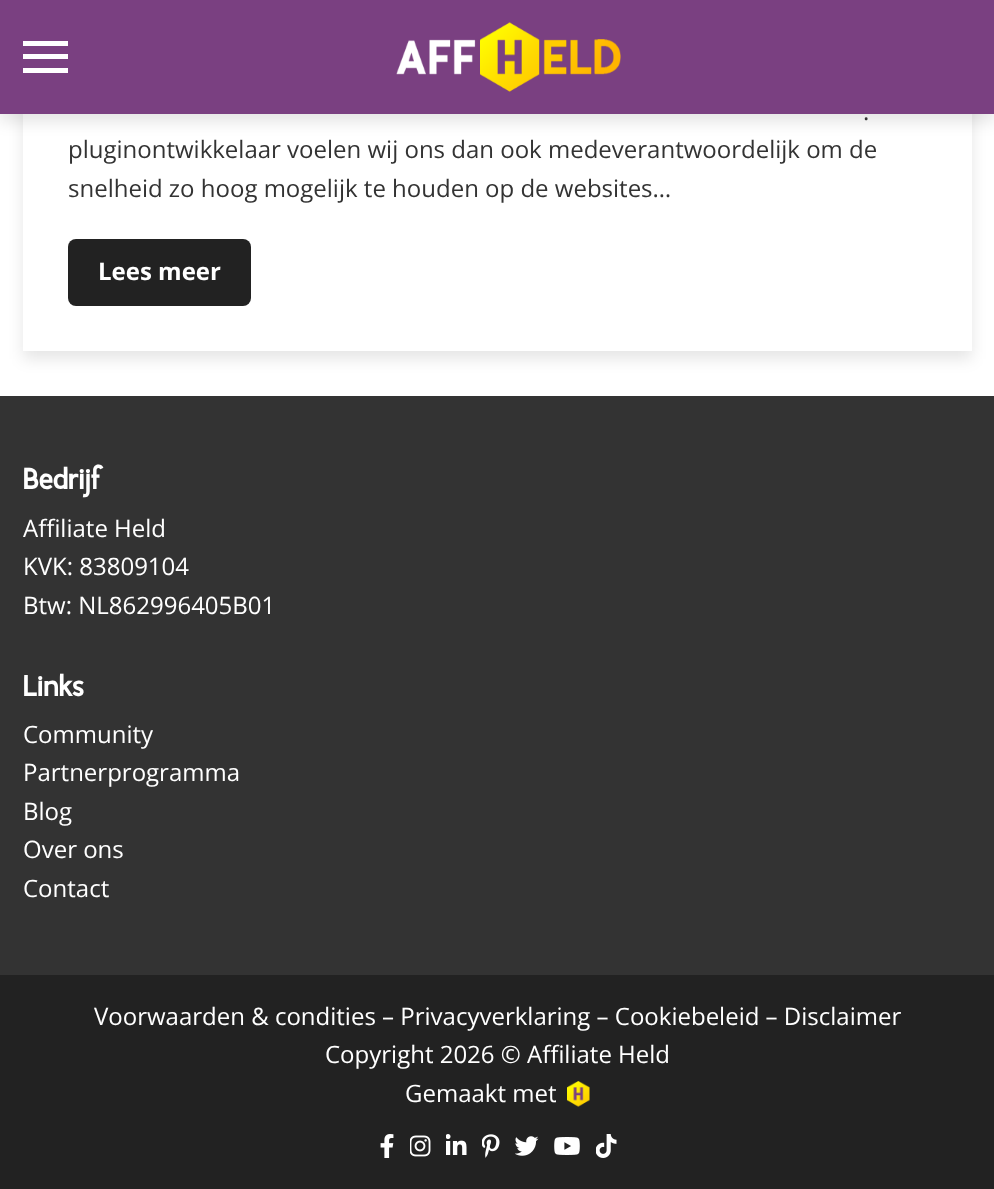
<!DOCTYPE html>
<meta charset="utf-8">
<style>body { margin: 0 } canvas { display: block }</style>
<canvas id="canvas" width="994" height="1189"></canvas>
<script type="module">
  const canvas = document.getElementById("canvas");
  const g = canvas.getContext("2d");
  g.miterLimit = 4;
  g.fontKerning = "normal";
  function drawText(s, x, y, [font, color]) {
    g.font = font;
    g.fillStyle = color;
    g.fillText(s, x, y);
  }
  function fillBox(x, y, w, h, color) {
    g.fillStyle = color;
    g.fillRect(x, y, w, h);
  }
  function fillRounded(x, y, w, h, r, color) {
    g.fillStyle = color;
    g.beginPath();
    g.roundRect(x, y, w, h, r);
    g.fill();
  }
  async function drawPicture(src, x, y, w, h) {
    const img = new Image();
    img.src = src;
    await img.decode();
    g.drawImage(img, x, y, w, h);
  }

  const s1 = ["24px Open Sans", "#333333"];
  const s2 = ["bold 24px Open Sans", "#FFFFFF"];
  const s3 = ["bold 29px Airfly", "#FFFFFF"];
  const s4 = ["24px Open Sans", "#FFFFFF"];

  fillBox(0, 0, 994, 1189, "#FFFFFF");
  g.fillStyle = "rgba(0, 0, 0, 0.1)";
  g.filter = "blur(7.5px)";
  g.beginPath();
  g.rect(0, 8, 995, 114);
  g.fill();
  g.filter = "none";
  g.save();
  g.beginPath();
  g.moveTo(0, 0);
  g.lineTo(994, 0);
  g.lineTo(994, 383);
  g.lineTo(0, 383);
  g.closePath();
  g.moveTo(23, -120);
  g.lineTo(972, -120);
  g.lineTo(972, 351);
  g.lineTo(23, 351);
  g.closePath();
  g.clip("evenodd");
  g.filter = "blur(7.5px)";
  g.beginPath();
  g.rect(23, -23, 949, 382);
  g.fill();
  g.filter = "none";
  g.restore();
  fillBox(0, 0, 994, 114, "#7A4081");
  fillBox(23, 41, 45, 5, "#FFFFFF");
  fillBox(23, 54, 45, 5, "#FFFFFF");
  fillBox(23, 68, 45, 5, "#FFFFFF");
  await drawPicture("pic1.png", 396, 22, 225, 70);
  drawText(".", 863, 120, s1);
  drawText("pluginontwikkelaar voelen wij ons dan ook medeverantwoordelijk om de", 68, 158, s1);
  drawText("snelheid zo hoog mogelijk te houden op de websites…", 68, 197, s1);
  fillRounded(68, 239, 183, 67, 8, "#222222");
  drawText("Lees meer", 98, 280, s2);
  fillBox(0, 396, 994, 579, "#333333");
  drawText("Bedrijf", 23, 489, s3);
  drawText("Affiliate Held", 23, 537, s4);
  drawText("KVK: 83809104", 23, 575, s4);
  drawText("Btw: NL862996405B01", 23, 614, s4);
  drawText("Links", 23, 696, s3);
  drawText("Community", 23, 743, s4);
  drawText("Partnerprogramma", 23, 781, s4);
  drawText("Blog", 23, 820, s4);
  drawText("Over ons", 23, 858, s4);
  drawText("Contact", 23, 897, s4);
  fillBox(0, 975, 994, 214, "#222222");
  drawText("Voorwaarden & condities – Privacyverklaring – Cookiebeleid – Disclaimer", 94, 1025, s4);
  drawText("Copyright 2026 © Affiliate Held", 325, 1063, s4);
  drawText("Gemaakt met", 405, 1102, s4);
  await drawPicture("pic2.png", 567, 1081, 23, 26);
  await drawPicture("pic3.png", 380, 1134, 14, 24);
  await drawPicture("pic4.png", 410, 1135, 21, 22);
  await drawPicture("pic5.png", 446, 1134, 21, 21);
  await drawPicture("pic6.png", 482, 1134, 18, 24);
  await drawPicture("pic7.png", 515, 1136, 24, 20);
  await drawPicture("pic8.png", 554, 1137, 26, 18);
  await drawPicture("pic9.png", 596, 1134, 21, 24);
</script>
